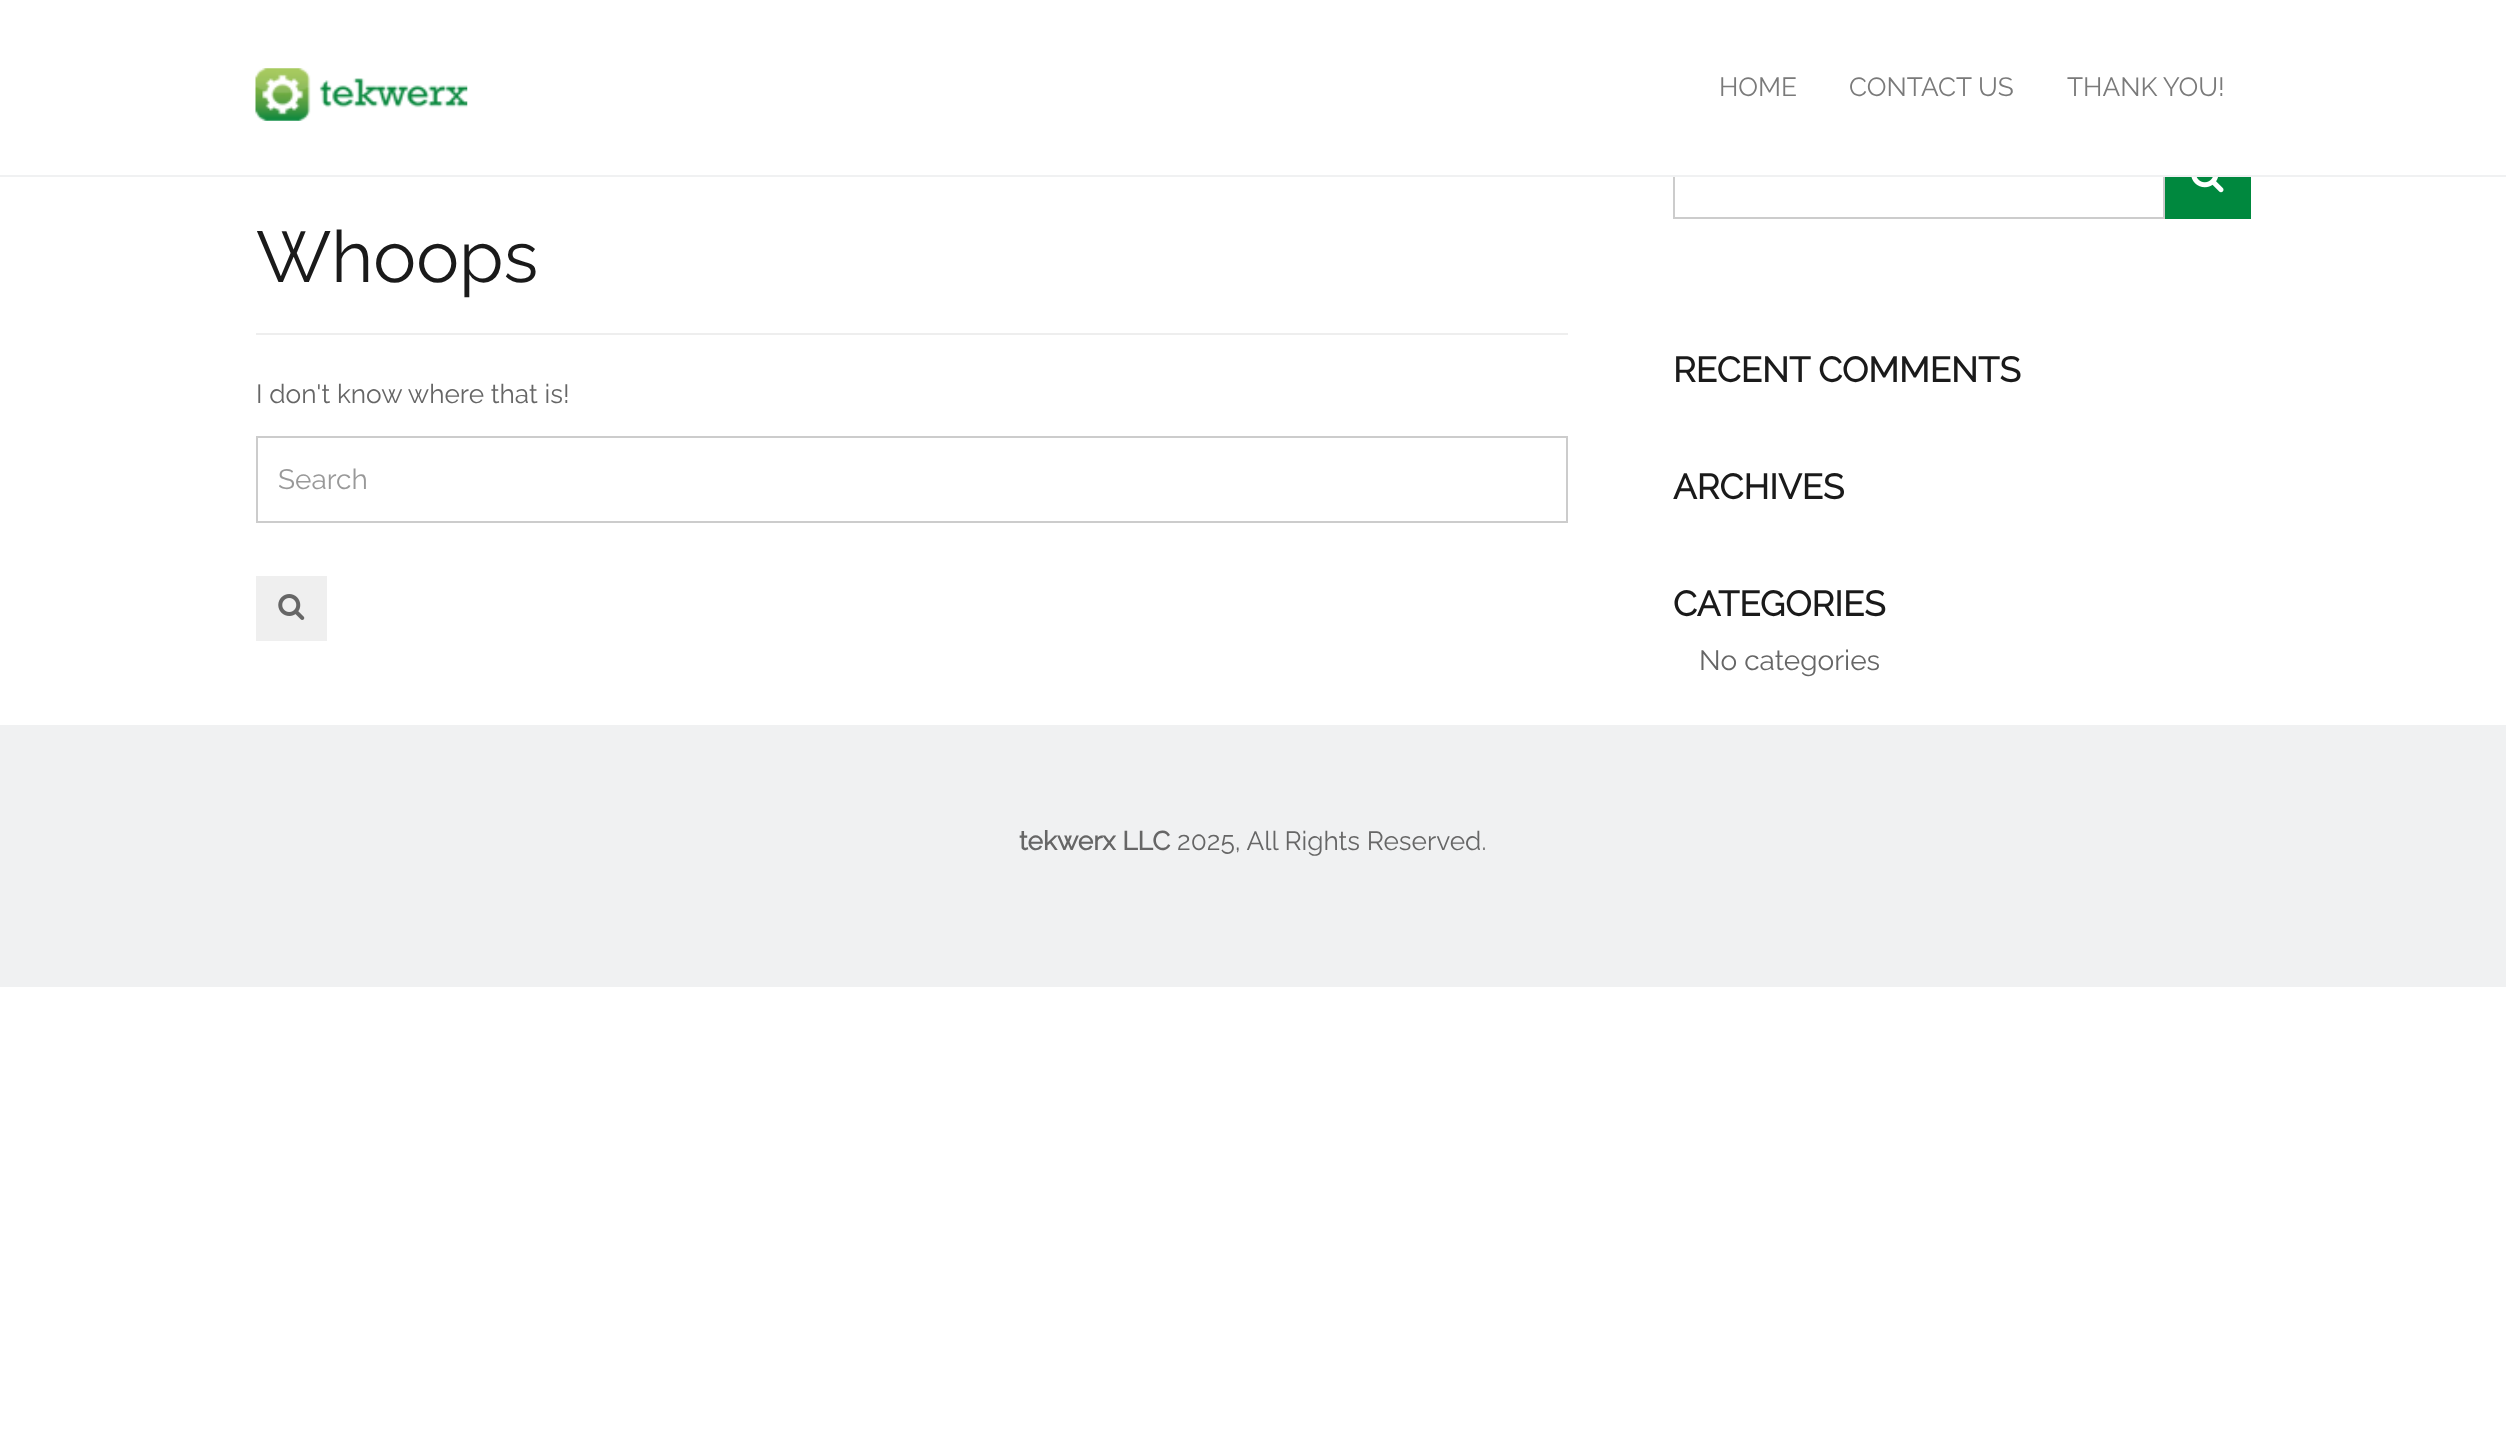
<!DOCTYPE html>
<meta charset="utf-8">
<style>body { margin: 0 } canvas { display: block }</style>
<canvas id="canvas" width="2506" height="1438"></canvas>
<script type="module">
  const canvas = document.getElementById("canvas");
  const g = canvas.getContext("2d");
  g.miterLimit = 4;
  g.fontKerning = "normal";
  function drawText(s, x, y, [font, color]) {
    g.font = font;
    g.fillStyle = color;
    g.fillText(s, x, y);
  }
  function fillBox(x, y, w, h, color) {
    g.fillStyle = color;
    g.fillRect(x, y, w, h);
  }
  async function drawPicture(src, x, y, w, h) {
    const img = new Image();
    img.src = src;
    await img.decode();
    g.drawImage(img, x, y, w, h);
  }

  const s1 = ["100 26.25px Raleway", "#7A7A7A"];
  const s2 = ["100 72px Raleway", "#1A1A1A"];
  const s3 = ["100 26.25px Raleway", "#666666"];
  const s4 = ["100 28px Raleway", "#999999"];
  const s5 = ["bold 35px Raleway", "#1A1A1A"];
  const s6 = ["100 28px Raleway", "#666666"];
  const s7 = ["bold 26.25px Raleway", "#666666"];

  fillBox(0, 0, 2506, 1438, "#FFFFFF");
  g.strokeStyle = "#CCCCCC";
  g.lineWidth = 2;
  g.strokeRect(1674, 132, 490, 86);
  fillBox(1673, 131, 492, 44, "#FFFFFF");
  fillBox(0, 175, 2506, 2, "#F0F1F2");
  await drawPicture("pic1.png", 255, 68, 213, 53);
  drawText("HOME", 1719, 96, s1);
  drawText("CONTACT US", 1849, 96, s1);
  drawText("THANK YOU!", 2067, 96, s1);
  fillBox(256, 333, 1312, 2, "#EEEEEE");
  drawText("Whoops", 256, 282, s2);
  drawText("I don't know where that is!", 256, 403, s3);
  g.strokeRect(257, 437, 1310, 85);
  drawText("Search", 278, 489, s4);
  fillBox(256, 576, 71, 65, "#EFEFEF");
  await drawPicture("pic2.png", 278, 594, 27, 26);
  fillBox(2165, 177, 86, 42, "#00883E");
  await drawPicture("pic3.png", 2191, 177, 33, 16);
  drawText("RECENT COMMENTS", 1673, 382, s5);
  drawText("ARCHIVES", 1673, 499, s5);
  drawText("CATEGORIES", 1673, 616, s5);
  drawText("No categories", 1699, 670, s6);
  fillBox(0, 725, 2506, 262, "#F0F1F2");
  drawText("tekwerx LLC", 1019, 850, s7);
  drawText("2025, All Rights Reserved.", 1177, 850, s3);
</script>
